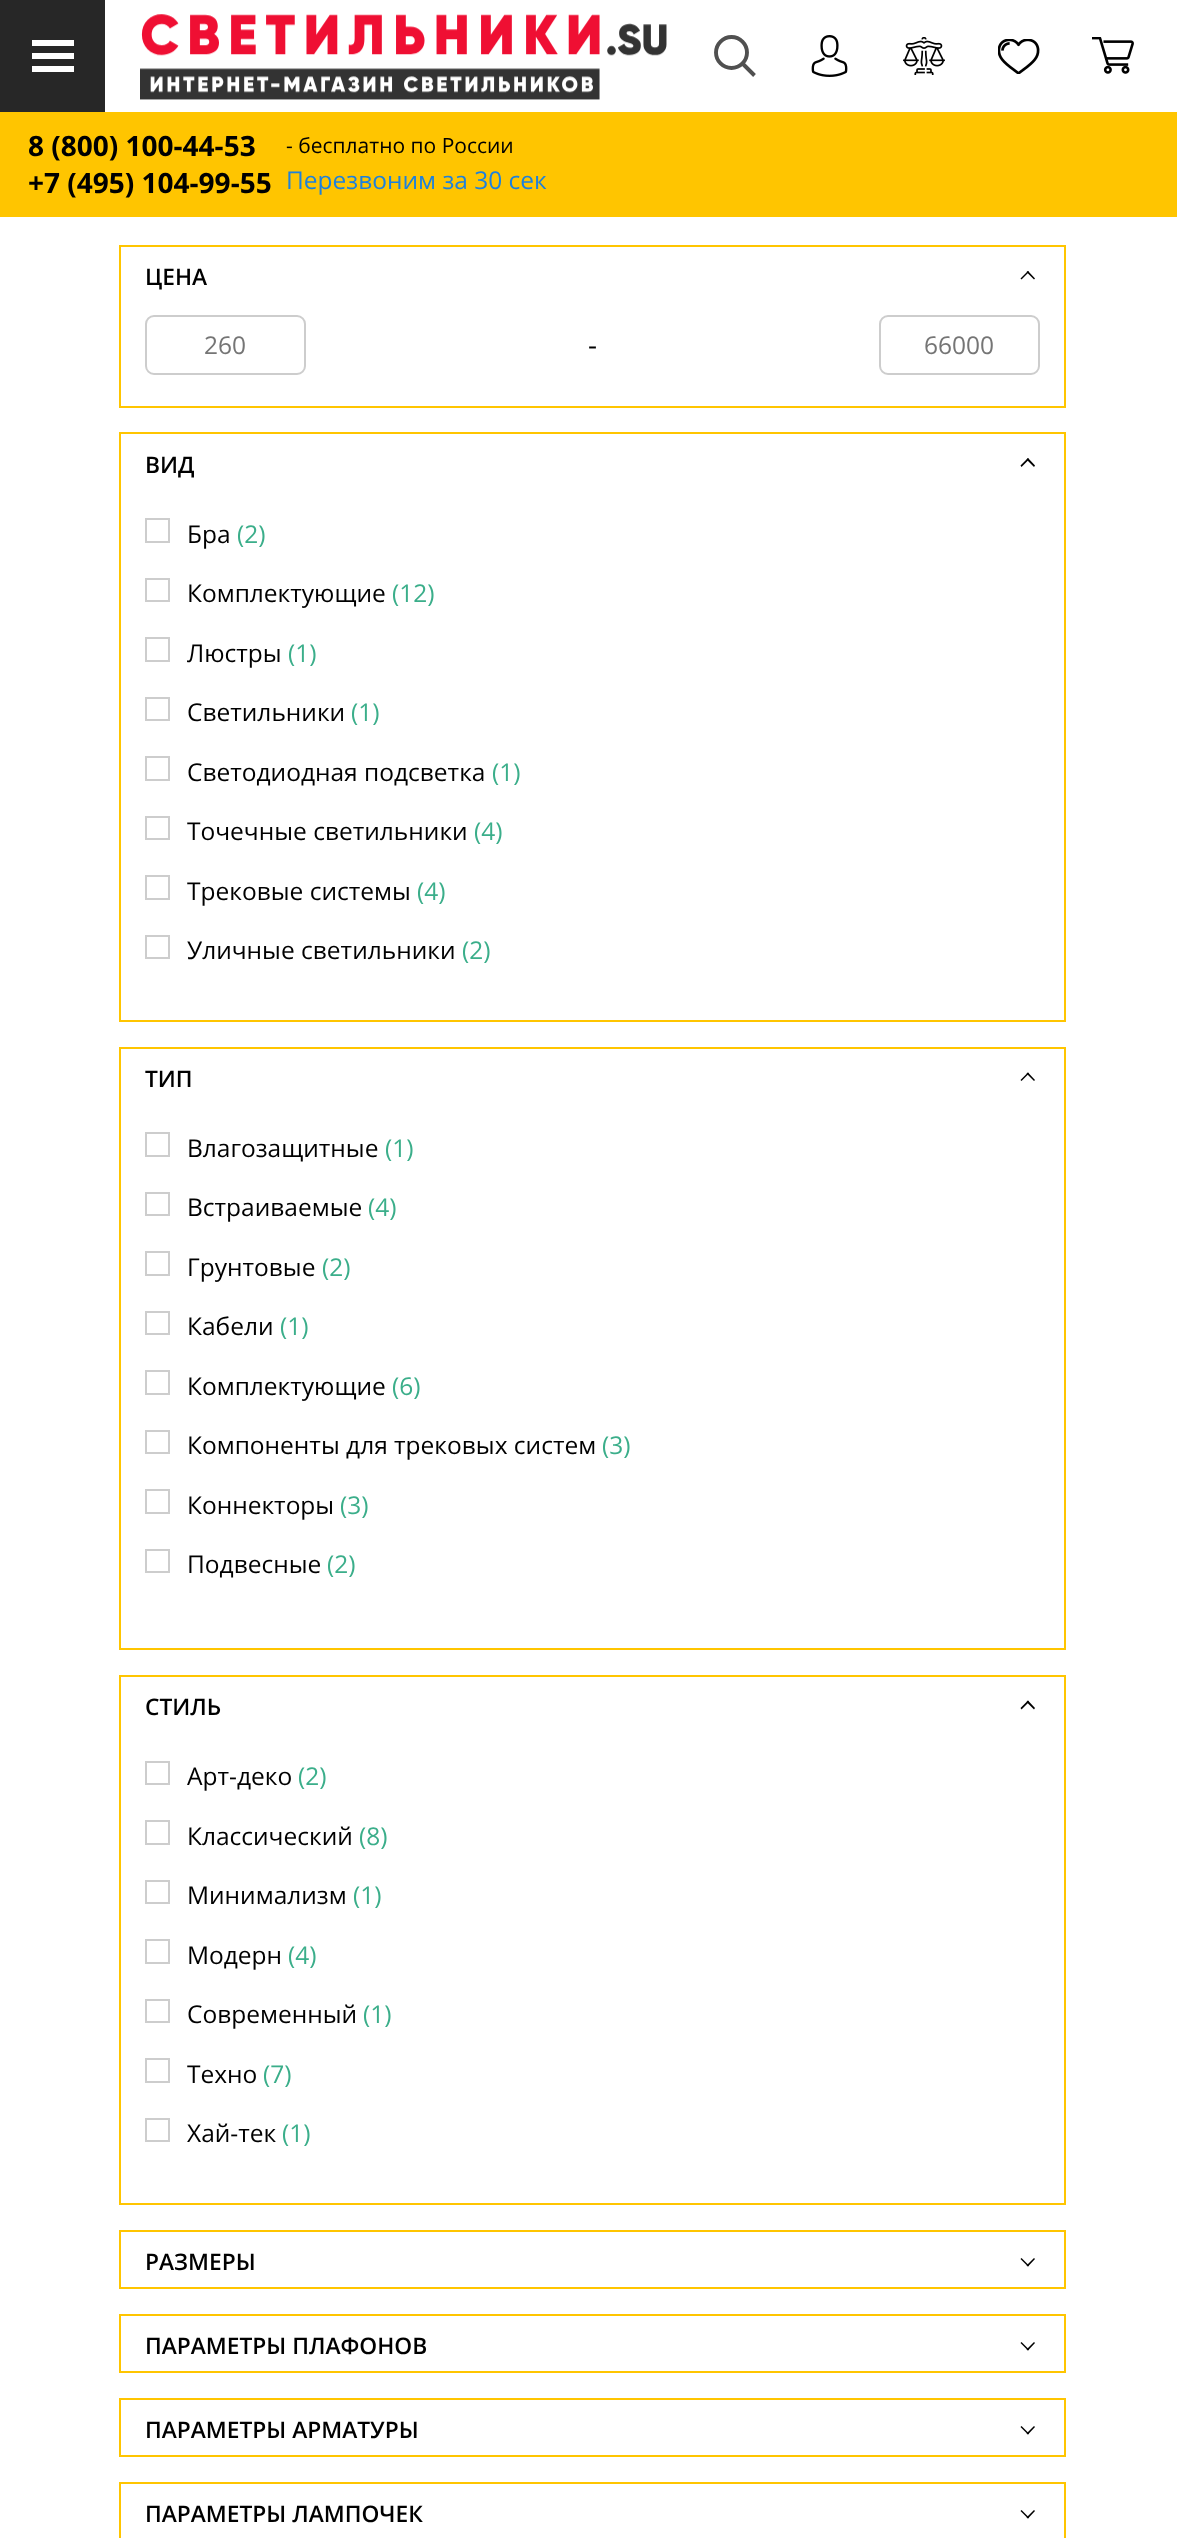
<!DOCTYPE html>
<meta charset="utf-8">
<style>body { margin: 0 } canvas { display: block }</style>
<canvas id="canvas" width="1177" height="2538"></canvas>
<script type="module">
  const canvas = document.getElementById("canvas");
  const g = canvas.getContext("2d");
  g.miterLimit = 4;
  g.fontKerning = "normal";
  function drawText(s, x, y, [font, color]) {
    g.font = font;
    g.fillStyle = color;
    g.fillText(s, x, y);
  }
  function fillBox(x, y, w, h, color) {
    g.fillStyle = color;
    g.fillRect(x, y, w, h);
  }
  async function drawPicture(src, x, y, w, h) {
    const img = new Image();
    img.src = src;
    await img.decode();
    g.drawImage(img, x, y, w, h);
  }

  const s1 = ["bold 28px Open Sans", "#000000"];
  const s2 = ["21px Open Sans", "#000000"];
  const s3 = ["24.5px Open Sans", "#1D81DD"];
  const s4 = ["600 22.75px Open Sans", "#000000"];
  const s5 = ["24.5px Open Sans", "#757575"];
  const s6 = ["28px Open Sans", "#000000"];
  const s7 = ["24.5px Open Sans", "#000000"];
  const s8 = ["24.5px Open Sans", "#3BAE8A"];

  fillBox(0, 0, 1177, 2538, "#FFFFFF");
  fillBox(0, 0, 105, 112, "#272727");
  g.fillStyle = "#FFFFFF";
  g.beginPath();
  g.moveTo(32, 40);
  g.lineTo(74, 40);
  g.lineTo(74, 46);
  g.lineTo(32, 46);
  g.closePath();
  g.moveTo(32, 53);
  g.lineTo(74, 53);
  g.lineTo(74, 59);
  g.lineTo(32, 59);
  g.closePath();
  g.moveTo(32, 66);
  g.lineTo(74, 66);
  g.lineTo(74, 72);
  g.lineTo(32, 72);
  g.closePath();
  g.fill("evenodd");
  await drawPicture("pic1.png", 140, 14, 527, 86);
  g.beginPath();
  g.arc(731.5, 52.5, 15.5, 0, Math.PI * 2);
  g.strokeStyle = "#505050";
  g.lineWidth = 3.9;
  g.stroke();
  g.beginPath();
  g.moveTo(743, 64);
  g.lineTo(754.5, 75.5);
  g.lineJoin = "round";
  g.stroke();
  await drawPicture("pic2.png", 811, 35, 37, 42);
  await drawPicture("pic3.png", 903, 37, 42, 38);
  await drawPicture("pic4.png", 998, 39, 42, 35);
  await drawPicture("pic5.png", 1092, 37, 42, 37);
  fillBox(0, 112, 1177, 105, "#FFC500");
  drawText("8 (800) 100-44-53", 28, 156, s1);
  drawText("+7 (495) 104-99-55", 28, 193, s1);
  drawText("- бесплатно по России", 286, 153, s2);
  drawText("Перезвоним за 30 сек", 286, 189, s3);
  g.strokeStyle = "#FFC500";
  g.lineWidth = 2;
  g.lineJoin = "miter";
  g.strokeRect(120, 246, 945, 161);
  drawText("ЦЕНА", 145, 285, s4);
  g.beginPath();
  g.moveTo(1021.5, 279.5);
  g.lineTo(1020.5, 278.5);
  g.lineTo(1028, 271);
  g.lineTo(1029, 272);
  g.closePath();
  g.fill();
  g.beginPath();
  g.moveTo(1035, 278.5);
  g.lineTo(1034, 279.5);
  g.lineTo(1026.5, 272);
  g.lineTo(1028, 271);
  g.closePath();
  g.fill();
  g.beginPath();
  g.roundRect(146, 316, 159, 58, 8);
  g.strokeStyle = "#CDCDCD";
  g.stroke();
  drawText("260", 204, 354, s5);
  drawText("-", 588, 355, s6);
  g.beginPath();
  g.roundRect(880, 316, 159, 58, 8);
  g.stroke();
  drawText("66000", 924, 354, s5);
  g.strokeStyle = "#FFC500";
  g.strokeRect(120, 433, 945, 588);
  drawText("ВИД", 145, 473, s4);
  g.beginPath();
  g.moveTo(1021.5, 467);
  g.lineTo(1020.5, 465.5);
  g.lineTo(1028, 458);
  g.lineTo(1029, 459.5);
  g.closePath();
  g.fill();
  g.beginPath();
  g.moveTo(1035, 465.5);
  g.lineTo(1034, 467);
  g.lineTo(1026.5, 459.5);
  g.lineTo(1028, 458);
  g.closePath();
  g.fill();
  g.strokeStyle = "#CDCDCD";
  g.strokeRect(146, 519, 23, 23);
  drawText("Бра", 187, 543, s7);
  drawText("(2)", 237, 543, s8);
  g.strokeRect(146, 579, 23, 22);
  drawText("Комплектующие", 187, 602, s7);
  drawText("(12)", 392, 602, s8);
  g.strokeRect(146, 638, 23, 23);
  drawText("Люстры", 187, 662, s7);
  drawText("(1)", 288, 662, s8);
  g.strokeRect(146, 698, 23, 22);
  drawText("Светильники", 187, 721, s7);
  drawText("(1)", 351, 721, s8);
  g.strokeRect(146, 757, 23, 23);
  drawText("Светодиодная подсветка", 187, 781, s7);
  drawText("(1)", 492, 781, s8);
  g.strokeRect(146, 817, 23, 22);
  drawText("Точечные светильники", 187, 840, s7);
  drawText("(4)", 474, 840, s8);
  g.strokeRect(146, 876, 23, 23);
  drawText("Трековые системы", 187, 900, s7);
  drawText("(4)", 417, 900, s8);
  g.strokeRect(146, 936, 23, 22);
  drawText("Уличные светильники", 187, 959, s7);
  drawText("(2)", 462, 959, s8);
  g.strokeStyle = "#FFC500";
  g.strokeRect(120, 1048, 945, 601);
  drawText("ТИП", 145, 1087, s4);
  g.beginPath();
  g.moveTo(1021.5, 1081);
  g.lineTo(1020.5, 1080);
  g.lineTo(1028, 1072.5);
  g.lineTo(1029, 1073.5);
  g.closePath();
  g.fill();
  g.beginPath();
  g.moveTo(1035, 1080);
  g.lineTo(1034, 1081);
  g.lineTo(1026.5, 1073.5);
  g.lineTo(1028, 1072.5);
  g.closePath();
  g.fill();
  g.strokeStyle = "#CDCDCD";
  g.strokeRect(146, 1133, 23, 23);
  drawText("Влагозащитные", 187, 1157, s7);
  drawText("(1)", 385, 1157, s8);
  g.strokeRect(146, 1193, 23, 22);
  drawText("Встраиваемые", 187, 1216, s7);
  drawText("(4)", 368, 1216, s8);
  g.strokeRect(146, 1252, 23, 23);
  drawText("Грунтовые", 187, 1276, s7);
  drawText("(2)", 322, 1276, s8);
  g.strokeRect(146, 1312, 23, 22);
  drawText("Кабели", 187, 1335, s7);
  drawText("(1)", 280, 1335, s8);
  g.strokeRect(146, 1371, 23, 23);
  drawText("Комплектующие", 187, 1395, s7);
  drawText("(6)", 392, 1395, s8);
  g.strokeRect(146, 1431, 23, 22);
  drawText("Компоненты для трековых систем", 187, 1454, s7);
  drawText("(3)", 602, 1454, s8);
  g.strokeRect(146, 1490, 23, 23);
  drawText("Коннекторы", 187, 1514, s7);
  drawText("(3)", 340, 1514, s8);
  g.strokeRect(146, 1550, 23, 22);
  drawText("Подвесные", 187, 1573, s7);
  drawText("(2)", 327, 1573, s8);
  g.strokeStyle = "#FFC500";
  g.strokeRect(120, 1676, 945, 528);
  drawText("СТИЛЬ", 145, 1715, s4);
  g.beginPath();
  g.moveTo(1021.5, 1709.5);
  g.lineTo(1020.5, 1708);
  g.lineTo(1028, 1700.5);
  g.lineTo(1029, 1702);
  g.closePath();
  g.fill();
  g.beginPath();
  g.moveTo(1035, 1708);
  g.lineTo(1034, 1709.5);
  g.lineTo(1026.5, 1702);
  g.lineTo(1028, 1700.5);
  g.closePath();
  g.fill();
  g.strokeStyle = "#CDCDCD";
  g.strokeRect(146, 1762, 23, 22);
  drawText("Арт-деко", 187, 1785, s7);
  drawText("(2)", 298, 1785, s8);
  g.strokeRect(146, 1821, 23, 23);
  drawText("Классический", 187, 1845, s7);
  drawText("(8)", 359, 1845, s8);
  g.strokeRect(146, 1881, 23, 22);
  drawText("Минимализм", 187, 1904, s7);
  drawText("(1)", 353, 1904, s8);
  g.strokeRect(146, 1940, 23, 23);
  drawText("Модерн", 187, 1964, s7);
  drawText("(4)", 288, 1964, s8);
  g.strokeRect(146, 2000, 23, 22);
  drawText("Современный", 187, 2023, s7);
  drawText("(1)", 363, 2023, s8);
  g.strokeRect(146, 2059, 23, 23);
  drawText("Техно", 187, 2083, s7);
  drawText("(7)", 263, 2083, s8);
  g.strokeRect(146, 2119, 23, 22);
  drawText("Хай-тек", 187, 2142, s7);
  drawText("(1)", 282, 2142, s8);
  g.strokeStyle = "#FFC500";
  g.strokeRect(120, 2231, 945, 57);
  drawText("РАЗМЕРЫ", 145, 2270, s4);
  g.beginPath();
  g.moveTo(1034, 2258);
  g.lineTo(1035, 2259);
  g.lineTo(1028, 2266.5);
  g.lineTo(1026.5, 2265.5);
  g.closePath();
  g.fill();
  g.beginPath();
  g.moveTo(1020.5, 2259);
  g.lineTo(1021.5, 2258);
  g.lineTo(1029, 2265.5);
  g.lineTo(1028, 2266.5);
  g.closePath();
  g.fill();
  g.strokeRect(120, 2315, 945, 57);
  drawText("ПАРАМЕТРЫ ПЛАФОНОВ", 145, 2354, s4);
  g.beginPath();
  g.moveTo(1034, 2342);
  g.lineTo(1035, 2343);
  g.lineTo(1028, 2350.5);
  g.lineTo(1026.5, 2349.5);
  g.closePath();
  g.fill();
  g.beginPath();
  g.moveTo(1020.5, 2343);
  g.lineTo(1021.5, 2342);
  g.lineTo(1029, 2349.5);
  g.lineTo(1028, 2350.5);
  g.closePath();
  g.fill();
  g.strokeRect(120, 2399, 945, 57);
  drawText("ПАРАМЕТРЫ АРМАТУРЫ", 145, 2438, s4);
  g.beginPath();
  g.moveTo(1034, 2426);
  g.lineTo(1035, 2427);
  g.lineTo(1028, 2434.5);
  g.lineTo(1026.5, 2433.5);
  g.closePath();
  g.fill();
  g.beginPath();
  g.moveTo(1020.5, 2427);
  g.lineTo(1021.5, 2426);
  g.lineTo(1029, 2433.5);
  g.lineTo(1028, 2434.5);
  g.closePath();
  g.fill();
  g.strokeRect(120, 2483, 945, 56);
  drawText("ПАРАМЕТРЫ ЛАМПОЧЕК", 145, 2522, s4);
  g.beginPath();
  g.moveTo(1034, 2510);
  g.lineTo(1035, 2511);
  g.lineTo(1028, 2518.5);
  g.lineTo(1026.5, 2517.5);
  g.closePath();
  g.fill();
  g.beginPath();
  g.moveTo(1020.5, 2511);
  g.lineTo(1021.5, 2510);
  g.lineTo(1029, 2517.5);
  g.lineTo(1028, 2518.5);
  g.closePath();
  g.fill();
</script>
